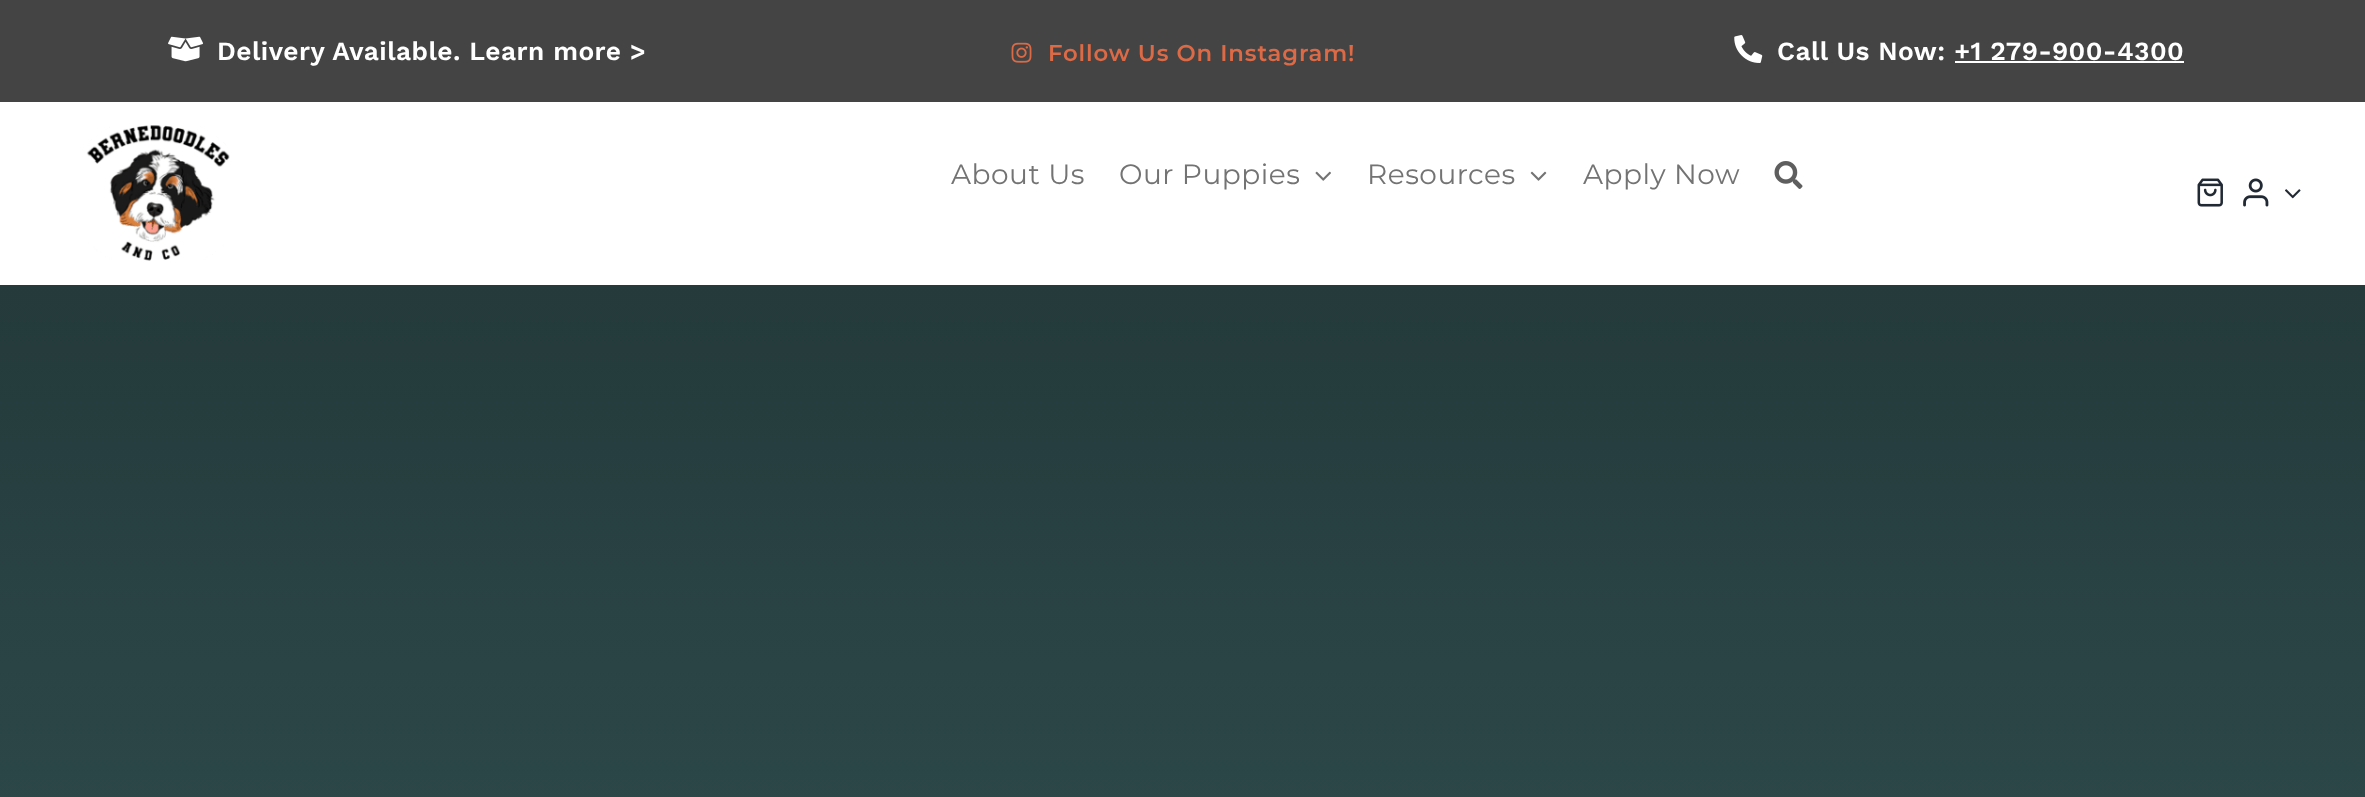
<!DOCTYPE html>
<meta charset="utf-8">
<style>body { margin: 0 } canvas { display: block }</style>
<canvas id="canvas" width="2365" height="797"></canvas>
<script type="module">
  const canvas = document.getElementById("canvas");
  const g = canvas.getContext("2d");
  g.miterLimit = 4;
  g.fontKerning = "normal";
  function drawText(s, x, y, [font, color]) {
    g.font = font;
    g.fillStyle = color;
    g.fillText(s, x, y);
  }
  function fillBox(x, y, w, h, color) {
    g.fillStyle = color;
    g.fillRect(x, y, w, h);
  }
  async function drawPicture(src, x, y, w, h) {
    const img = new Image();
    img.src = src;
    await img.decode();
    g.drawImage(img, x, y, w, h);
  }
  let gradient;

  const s1 = ["600 26.25px Work Sans", "#FFFFFF"];
  const s2 = ["600 22.75px Montserrat", "#DD6A46"];
  const s3 = ["28px Montserrat", "#737373"];

  fillBox(0, 0, 2365, 797, "#FFFFFF");
  fillBox(0, 0, 2365, 102, "#444444");
  await drawPicture("pic1.png", 168, 36, 35, 26);
  g.letterSpacing = "0.45px";
  drawText("Delivery Available. Learn more >", 217, 60, s1);
  await drawPicture("pic2.png", 1011, 42, 21, 21);
  g.letterSpacing = "0.9px";
  drawText("Follow Us On Instagram!", 1048, 61, s2);
  await drawPicture("pic3.png", 1734, 35, 29, 28);
  g.letterSpacing = "0.45px";
  drawText("Call Us Now: +1 279-900-4300", 1777, 60, s1);
  fillBox(1955, 61, 229, 2, "#FFFFFF");
  await drawPicture("pic4.png", 86, 125, 144, 136);
  g.letterSpacing = "0.5px";
  drawText("About Us", 951, 184, s3);
  drawText("Our Puppies", 1119, 184, s3);
  await drawPicture("pic5.png", 1315, 171, 16, 10);
  drawText("Resources", 1367, 184, s3);
  await drawPicture("pic6.png", 1530, 171, 17, 10);
  drawText("Apply Now", 1583, 184, s3);
  await drawPicture("pic7.png", 1774, 161, 29, 28);
  await drawPicture("pic8.png", 2197, 178, 26, 29);
  await drawPicture("pic9.png", 2243, 178, 26, 29);
  await drawPicture("pic10.png", 2285, 189, 16, 10);
  gradient = g.createLinearGradient(1183, 285, 1183, 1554);
  gradient.addColorStop(0, "#243A3B");
  gradient.addColorStop(0.6, "#304D4E");
  g.fillStyle = gradient;
  g.fillRect(0, 285, 2365, 512);
</script>
